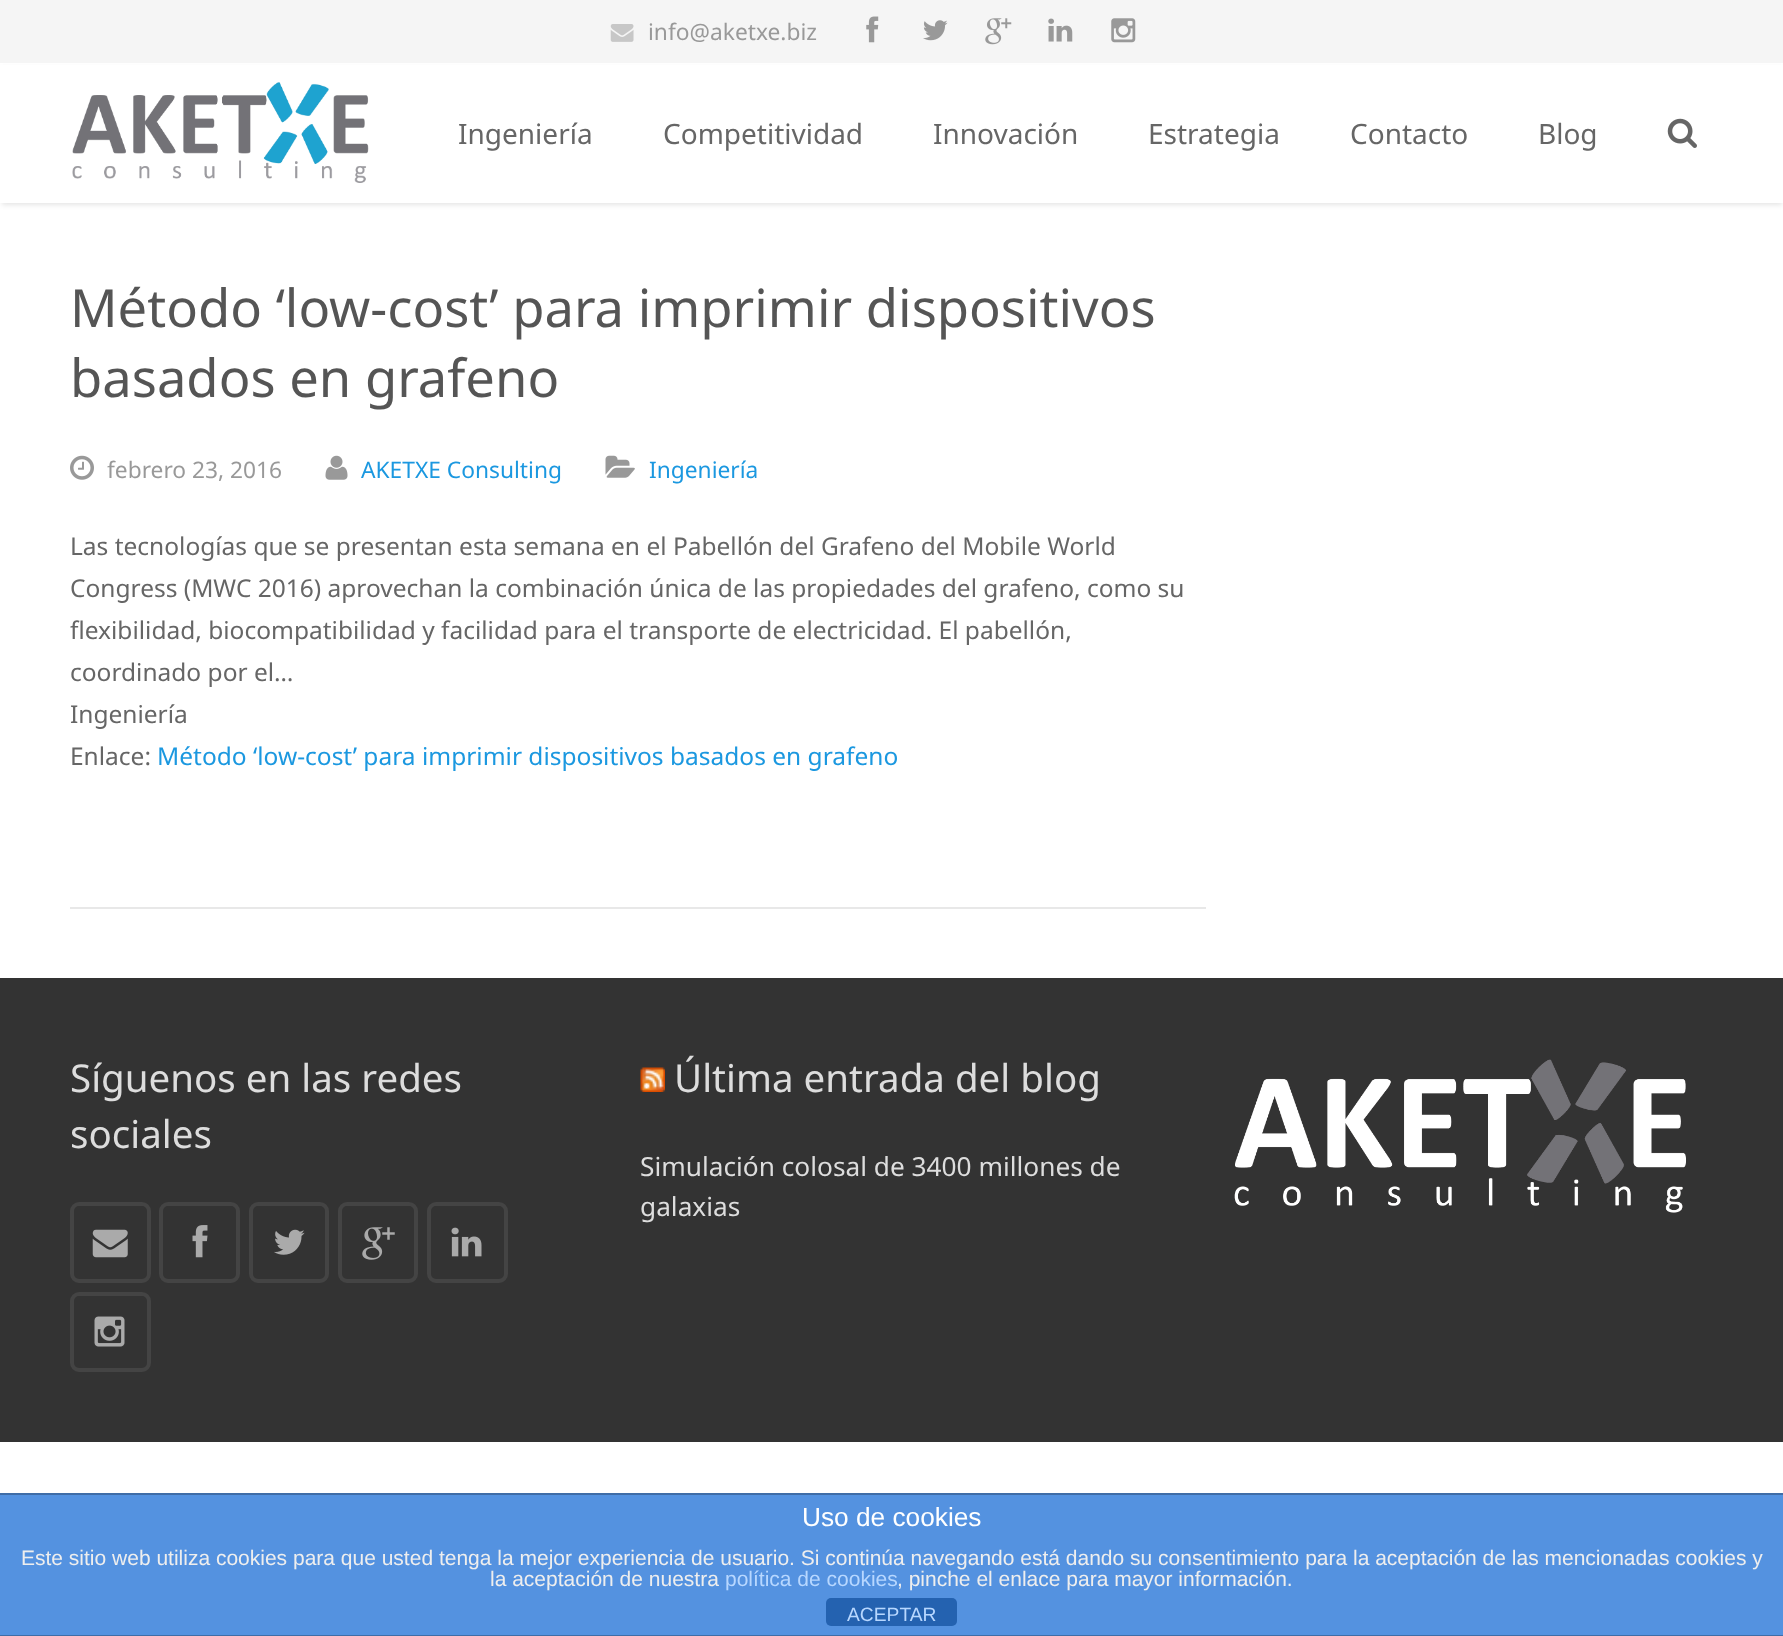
<!DOCTYPE html>
<meta charset="utf-8">
<style>body { margin: 0 } canvas { display: block }</style>
<canvas id="canvas" width="1783" height="1636"></canvas>
<script type="module">
  const canvas = document.getElementById("canvas");
  const g = canvas.getContext("2d");
  g.miterLimit = 4;
  g.fontKerning = "normal";
  function drawText(s, x, y, [font, color]) {
    g.font = font;
    g.fillStyle = color;
    g.fillText(s, x, y);
  }
  function fillBox(x, y, w, h, color) {
    g.fillStyle = color;
    g.fillRect(x, y, w, h);
  }
  function fillRounded(x, y, w, h, r, color) {
    g.fillStyle = color;
    g.beginPath();
    g.roundRect(x, y, w, h, r);
    g.fill();
  }
  async function drawPicture(src, x, y, w, h) {
    const img = new Image();
    img.src = src;
    await img.decode();
    g.drawImage(img, x, y, w, h);
  }

  const s1 = ["22.75px Noto Sans", "#999999"];
  const s2 = ["28px Noto Sans", "#666666"];
  const s3 = ["52.5px Noto Sans", "#555555"];
  const s4 = ["22.75px Noto Sans", "#1B98E0"];
  const s5 = ["24.5px Noto Sans", "#666666"];
  const s6 = ["24.5px Noto Sans", "#1B98E0"];
  const s7 = ["38.5px Noto Sans", "#DDDDDD"];
  const s8 = ["26.25px Noto Sans", "#DDDDDD"];
  const s9 = ["26.25px Liberation Sans", "#FFFFFF"];
  const s10 = ["21px Liberation Sans", "#EEEEEE"];
  const s11 = ["21px Liberation Sans", "#B7D7FF"];
  const s12 = ["19.25px Liberation Sans", "#B7D7FF"];

  fillBox(0, 0, 1783, 1636, "#FFFFFF");
  fillBox(0, 0, 1783, 63, "#F5F5F5");
  await drawPicture("pic1.png", 610, 24, 24, 18);
  drawText("info@aketxe.biz", 648, 40, s1);
  await drawPicture("pic2.png", 866, 16, 13, 27);
  await drawPicture("pic3.png", 923, 20, 25, 21);
  await drawPicture("pic4.png", 985, 18, 27, 27);
  await drawPicture("pic5.png", 1048, 18, 25, 24);
  await drawPicture("pic6.png", 1111, 18, 25, 25);
  g.fillStyle = "rgba(0, 0, 0, 0.1)";
  g.filter = "blur(2.5px)";
  g.beginPath();
  g.rect(2, 68, 1780, 137);
  g.fill();
  g.filter = "none";
  fillBox(0, 65, 1783, 138, "#FFFFFF");
  await drawPicture("pic7.png", 72, 82, 297, 101);
  drawText("Ingeniería", 458, 144, s2);
  drawText("Competitividad", 663, 144, s2);
  drawText("Innovación", 933, 144, s2);
  drawText("Estrategia", 1148, 144, s2);
  drawText("Contacto", 1350, 144, s2);
  drawText("Blog", 1538, 144, s2);
  await drawPicture("pic8.png", 1667, 118, 30, 30);
  fillBox(70, 907, 1136, 2, "#E8E8E8");
  drawText("Método ‘low-cost’ para imprimir dispositivos", 70, 327, s3);
  drawText("basados en grafeno", 70, 397, s3);
  await drawPicture("pic9.png", 70, 455, 24, 25);
  drawText("febrero 23, 2016", 107, 478, s1);
  await drawPicture("pic10.png", 325, 455, 23, 25);
  drawText("AKETXE Consulting", 361, 478, s4);
  await drawPicture("pic11.png", 605, 455, 30, 23);
  drawText("Ingeniería", 649, 478, s4);
  drawText("Las tecnologías que se presentan esta semana en el Pabellón del Grafeno del Mobile World", 70, 555, s5);
  drawText("Congress (MWC 2016) aprovechan la combinación única de las propiedades del grafeno, como su", 70, 597, s5);
  drawText("flexibilidad, biocompatibilidad y facilidad para el transporte de electricidad. El pabellón,", 70, 639, s5);
  drawText("coordinado por el…", 70, 681, s5);
  drawText("Ingeniería", 70, 723, s5);
  drawText("Enlace:", 70, 765, s5);
  drawText("Método ‘low-cost’ para imprimir dispositivos basados en grafeno", 157, 765, s6);
  fillBox(0, 978, 1783, 464, "#333333");
  drawText("Síguenos en las redes", 70, 1092, s7);
  drawText("sociales", 70, 1148, s7);
  g.beginPath();
  g.roundRect(72, 1204, 77, 77, 7);
  g.strokeStyle = "#444444";
  g.lineWidth = 4;
  g.stroke();
  await drawPicture("pic12.png", 92, 1229, 36, 29);
  g.beginPath();
  g.roundRect(161, 1204, 77, 77, 7);
  g.stroke();
  await drawPicture("pic13.png", 192, 1225, 16, 33);
  g.beginPath();
  g.roundRect(251, 1204, 76, 77, 7);
  g.stroke();
  await drawPicture("pic14.png", 274, 1229, 31, 26);
  g.beginPath();
  g.roundRect(340, 1204, 76, 77, 7);
  g.stroke();
  await drawPicture("pic15.png", 362, 1227, 33, 33);
  g.beginPath();
  g.roundRect(429, 1204, 77, 77, 7);
  g.stroke();
  await drawPicture("pic16.png", 451, 1227, 31, 30);
  g.beginPath();
  g.roundRect(72, 1294, 77, 76, 7);
  g.stroke();
  await drawPicture("pic17.png", 94, 1316, 31, 31);
  await drawPicture("pic18.png", 640, 1067, 25, 25);
  drawText("Última entrada del blog", 674, 1092, s7);
  drawText("Simulación colosal de 3400 millones de", 640, 1176, s8);
  drawText("galaxias", 640, 1216, s8);
  await drawPicture("pic19.png", 1234, 1059, 453, 154);
  fillBox(0, 1495, 1783, 140, "#5492E0");
  fillBox(0, 1493, 1783, 2, "#3F6DA7");
  fillBox(0, 1635, 1783, 1, "#3F6DA7");
  drawText("Uso de cookies", 802, 1526, s9);
  drawText("Este sitio web utiliza cookies para que usted tenga la mejor experiencia de usuario. Si continúa navegando está dando su consentimiento para la aceptación de las mencionadas cookies y", 21, 1565, s10);
  drawText("la aceptación de nuestra", 490, 1586, s10);
  drawText("política de cookies", 725, 1586, s11);
  drawText(", pinche el enlace para mayor información.", 897, 1586, s10);
  fillRounded(826, 1598, 131, 28, 5, "#2462B0");
  drawText("ACEPTAR", 847, 1621, s12);
</script>
